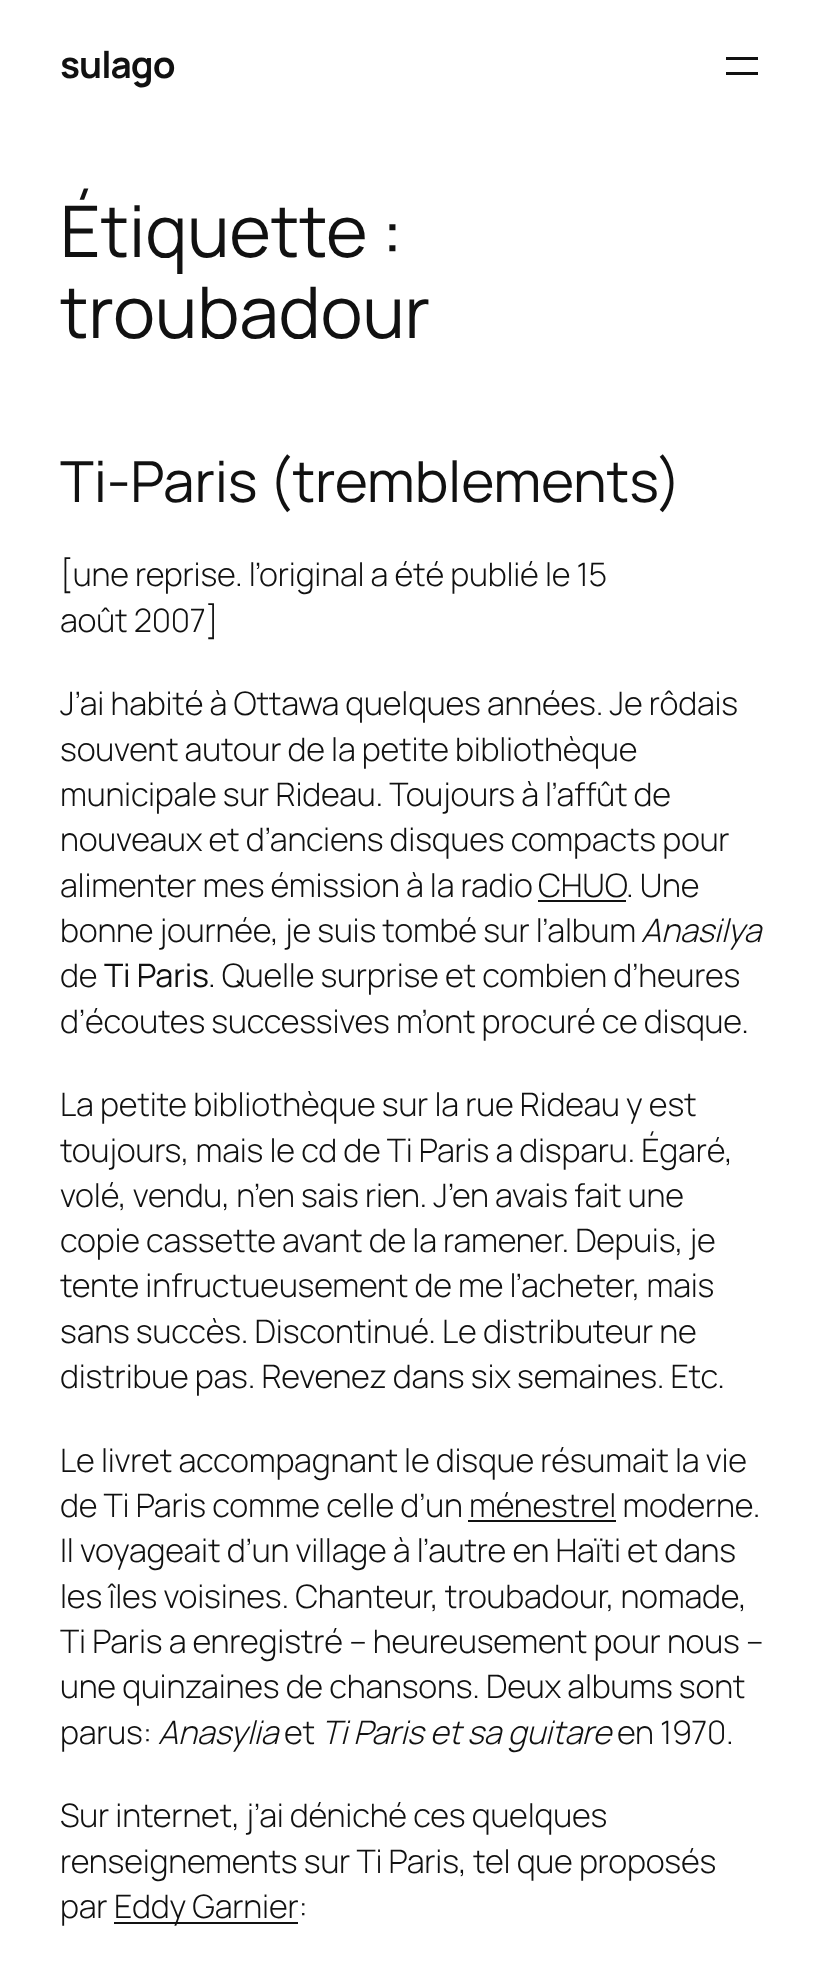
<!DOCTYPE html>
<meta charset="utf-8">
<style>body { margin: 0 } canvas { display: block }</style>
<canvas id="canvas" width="825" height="1976"></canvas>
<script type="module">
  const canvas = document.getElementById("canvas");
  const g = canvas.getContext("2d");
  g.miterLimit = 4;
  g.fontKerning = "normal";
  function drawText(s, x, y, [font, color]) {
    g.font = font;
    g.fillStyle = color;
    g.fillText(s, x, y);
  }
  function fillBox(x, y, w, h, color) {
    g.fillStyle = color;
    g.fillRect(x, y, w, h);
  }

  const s1 = ["bold 37px Manrope", "#111111"];
  const s2 = ["71.25px Manrope", "#111111"];
  const s3 = ["56.75px Manrope", "#111111"];
  const s4 = ["300 32.4px Manrope", "#111111"];
  const s5 = ["italic 300 32.4px Manrope", "#111111"];
  const s6 = ["32.4px Manrope", "#111111"];

  fillBox(0, 0, 825, 1976, "#FFFFFF");
  g.letterSpacing = "-1px";
  drawText("sulago", 60, 78, s1);
  fillBox(726, 57, 32, 3, "#111111");
  fillBox(726, 72, 32, 3, "#111111");
  g.letterSpacing = "-0.2px";
  drawText("Étiquette :", 60, 257, s2);
  drawText("troubadour", 60, 338, s2);
  drawText("Ti-Paris (tremblements)", 60, 502, s3);
  drawText("[une reprise. l’original a été publié le 15", 60, 586, s4);
  drawText("août 2007]", 60, 632, s4);
  drawText("J’ai habité à Ottawa quelques années. Je rôdais", 60, 715, s4);
  drawText("souvent autour de la petite bibliothèque", 60, 761, s4);
  drawText("municipale sur Rideau. Toujours à l’affût de", 60, 806, s4);
  drawText("nouveaux et d’anciens disques compacts pour", 60, 851, s4);
  drawText("alimenter mes émission à la radio", 60, 897, s4);
  drawText("CHUO", 538, 897, s4);
  fillBox(538, 900, 88, 2, "#111111");
  drawText(". Une", 626, 897, s4);
  drawText("bonne journée, je suis tombé sur l’album", 60, 942, s4);
  drawText("Anasilya", 641, 942, s5);
  drawText("de", 60, 987, s4);
  drawText("Ti Paris", 104, 987, s6);
  drawText(". Quelle surprise et combien d’heures", 208, 987, s4);
  drawText("d’écoutes successives m’ont procuré ce disque.", 60, 1033, s4);
  drawText("La petite bibliothèque sur la rue Rideau y est", 60, 1116, s4);
  drawText("toujours, mais le cd de Ti Paris a disparu. Égaré,", 60, 1162, s4);
  drawText("volé, vendu, n’en sais rien. J’en avais fait une", 60, 1207, s4);
  drawText("copie cassette avant de la ramener. Depuis, je", 60, 1252, s4);
  drawText("tente infructueusement de me l’acheter, mais", 60, 1297, s4);
  drawText("sans succès. Discontinué. Le distributeur ne", 60, 1343, s4);
  drawText("distribue pas. Revenez dans six semaines. Etc.", 60, 1388, s4);
  drawText("Le livret accompagnant le disque résumait la vie", 60, 1472, s4);
  drawText("de Ti Paris comme celle d’un ménestrel moderne.", 60, 1517, s4);
  fillBox(468, 1520, 148, 2, "#111111");
  drawText("Il voyageait d’un village à l’autre en Haïti et dans", 60, 1562, s4);
  drawText("les îles voisines. Chanteur, troubadour, nomade,", 60, 1608, s4);
  drawText("Ti Paris a enregistré – heureusement pour nous –", 60, 1653, s4);
  drawText("une quinzaines de chansons. Deux albums sont", 60, 1698, s4);
  drawText("parus:", 60, 1744, s4);
  drawText("Anasylia", 158, 1744, s5);
  drawText("et", 284, 1744, s4);
  drawText("Ti Paris et sa guitare", 321, 1744, s5);
  drawText("en 1970.", 617, 1744, s4);
  drawText("Sur internet, j’ai déniché ces quelques", 60, 1827, s4);
  drawText("renseignements sur Ti Paris, tel que proposés", 60, 1873, s4);
  drawText("par", 60, 1918, s4);
  fillBox(114, 1922, 184, 2, "#111111");
  drawText("Eddy Garnier:", 114, 1918, s4);
</script>
